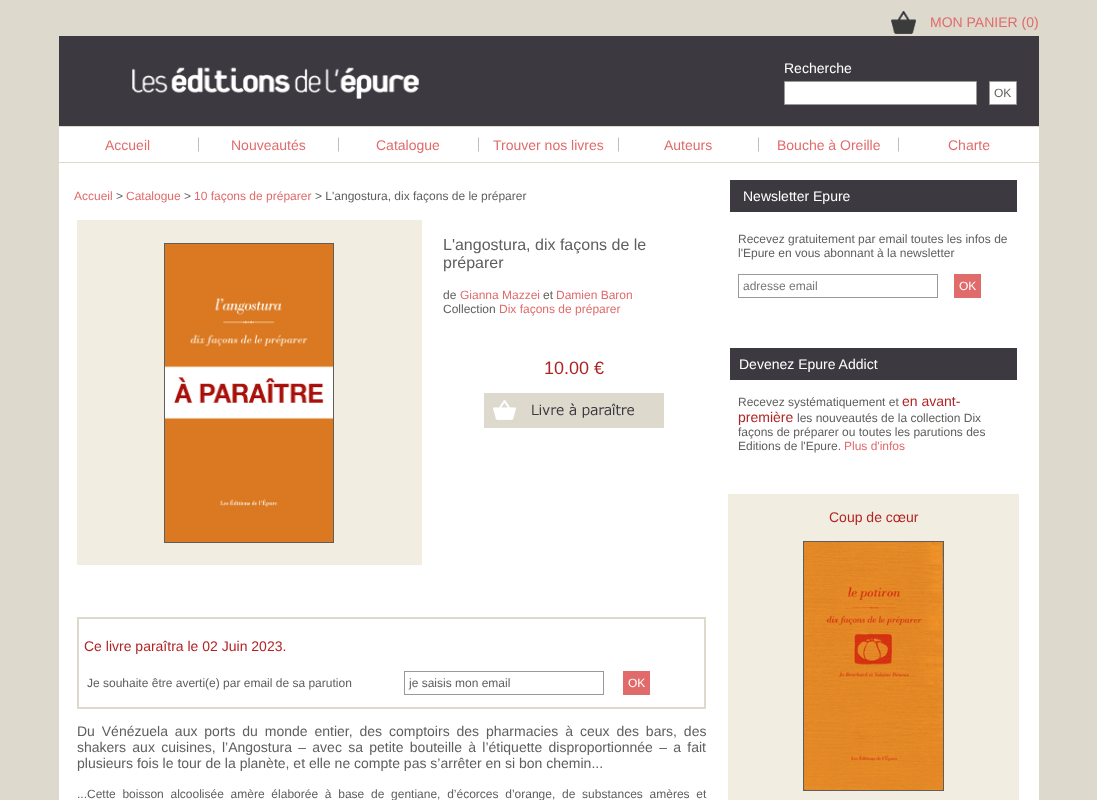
<!DOCTYPE html>
<meta charset="utf-8">
<style>body { margin: 0 } canvas { display: block }</style>
<canvas id="canvas" width="1097" height="800"></canvas>
<script type="module">
  const canvas = document.getElementById("canvas");
  const g = canvas.getContext("2d");
  g.miterLimit = 4;
  g.fontKerning = "normal";
  function drawText(s, x, y, [font, color]) {
    g.font = font;
    g.fillStyle = color;
    g.fillText(s, x, y);
  }
  function fillBox(x, y, w, h, color) {
    g.fillStyle = color;
    g.fillRect(x, y, w, h);
  }
  async function drawPicture(src, x, y, w, h) {
    const img = new Image();
    img.src = src;
    await img.decode();
    g.drawImage(img, x, y, w, h);
  }

  const s1 = ["14px Liberation Sans", "#E16B6B"];
  const s2 = ["14px Liberation Sans", "#FFFFFF"];
  const s3 = ["12px Liberation Sans", "#5F5E5C"];
  const s4 = ["12px Liberation Sans", "#E16B6B"];
  const s5 = ["16px Liberation Sans", "#5F5E5C"];
  const s6 = ["18px Liberation Sans", "#B12424"];
  const s7 = ["14px Liberation Sans", "#B12424"];
  const s8 = ["12px Liberation Sans", "#FFFFFF"];
  const s9 = ["14px Liberation Sans", "#5F5E5C"];
  const s10 = ["12px Liberation Sans", "#757575"];

  fillBox(0, 0, 1097, 800, "#DDD9CD");
  await drawPicture("pic1.png", 891, 11, 25, 23);
  drawText("MON PANIER (0)", 930, 27, s1);
  fillBox(59, 36, 980, 90, "#3C3A40");
  await drawPicture("pic2.png", 132, 67, 287, 32);
  drawText("Recherche", 784, 73, s2);
  g.beginPath();
  g.rect(784.5, 81.5, 192, 23);
  g.fill();
  g.strokeStyle = "#999999";
  g.stroke();
  g.beginPath();
  g.rect(989.5, 81.5, 27, 23);
  g.fill();
  g.stroke();
  drawText("OK", 994, 97, s3);
  fillBox(59, 127, 980, 673, "#FFFFFF");
  fillBox(59, 162, 980, 1, "#DDD9CD");
  drawText("Accueil", 105, 150, s1);
  await drawPicture("pic3.png", 198, 137, 1, 15);
  drawText("Nouveautés", 231, 150, s1);
  await drawPicture("pic3.png", 338, 137, 1, 15);
  drawText("Catalogue", 376, 150, s1);
  await drawPicture("pic3.png", 478, 137, 1, 15);
  drawText("Trouver nos livres", 493, 150, s1);
  await drawPicture("pic3.png", 618, 137, 1, 15);
  drawText("Auteurs", 664, 150, s1);
  await drawPicture("pic3.png", 758, 137, 1, 15);
  drawText("Bouche à Oreille", 777, 150, s1);
  await drawPicture("pic3.png", 898, 137, 1, 15);
  drawText("Charte", 948, 150, s1);
  drawText("Accueil", 74, 200, s4);
  drawText(">", 116, 200, s3);
  drawText("Catalogue", 126, 200, s4);
  drawText(">", 184, 200, s3);
  drawText("10 façons de préparer", 194, 200, s4);
  drawText("> L'angostura, dix façons de le préparer", 315, 200, s3);
  fillBox(77, 220, 345, 345, "#F2EDE1");
  g.strokeStyle = "#5F5E5C";
  g.strokeRect(164.5, 243.5, 169, 299);
  await drawPicture("pic4.png", 165, 244, 168, 298);
  drawText("L'angostura, dix façons de le", 443, 250, s5);
  drawText("préparer", 443, 268, s5);
  drawText("de", 443, 299, s3);
  drawText("Gianna Mazzei", 460, 299, s4);
  drawText("et", 543, 299, s3);
  drawText("Damien Baron", 556, 299, s4);
  drawText("Collection", 443, 313, s3);
  drawText("Dix façons de préparer", 499, 313, s4);
  drawText("10.00 €", 544, 374, s6);
  await drawPicture("pic5.png", 484, 393, 180, 35);
  g.strokeStyle = "#DDD9CD";
  g.lineWidth = 2;
  g.strokeRect(78, 618, 627, 90);
  drawText("Ce livre paraîtra le 02 Juin 2023.", 84, 651, s7);
  drawText("Je souhaite être averti(e) par email de sa parution", 87, 687, s3);
  g.strokeStyle = "#999999";
  g.lineWidth = 1;
  g.strokeRect(404.5, 671.5, 199, 23);
  drawText("je saisis mon email", 409, 687, s3);
  fillBox(623, 671, 27, 24, "#E16B6B");
  drawText("OK", 628, 687, s8);
  g.wordSpacing = "3px";
  drawText("Du Vénézuela aux ports du monde entier, des comptoirs des pharmacies à ceux des bars, des", 77, 736, s9);
  g.wordSpacing = "2.4px";
  drawText("shakers aux cuisines, l’Angostura – avec sa petite bouteille à l’étiquette disproportionnée – a fait", 77, 752, s9);
  g.wordSpacing = "0px";
  drawText("plusieurs fois le tour de la planète, et elle ne compte pas s’arrêter en si bon chemin...", 77, 768, s9);
  g.wordSpacing = "3.4px";
  drawText("...Cette boisson alcoolisée amère élaborée à base de gentiane, d’écorces d’orange, de substances amères et", 77, 798, s3);
  fillBox(730, 180, 287, 32, "#3C3A40");
  g.wordSpacing = "0px";
  drawText("Newsletter Epure", 743, 201, s2);
  drawText("Recevez gratuitement par email toutes les infos de", 738, 243, s3);
  drawText("l'Epure en vous abonnant à la newsletter", 738, 257, s3);
  g.strokeRect(738.5, 274.5, 199, 23);
  drawText("adresse email", 743, 290, s10);
  fillBox(954, 274, 27, 24, "#E16B6B");
  drawText("OK", 959, 290, s8);
  fillBox(730, 348, 287, 32, "#3C3A40");
  drawText("Devenez Epure Addict", 739, 369, s2);
  drawText("Recevez systématiquement et", 738, 406, s3);
  drawText("en avant-", 902, 406, s7);
  drawText("première", 738, 422, s7);
  drawText("les nouveautés de la collection Dix", 797, 422, s3);
  drawText("façons de préparer ou toutes les parutions des", 738, 436, s3);
  drawText("Editions de l'Epure.", 738, 450, s3);
  drawText("Plus d'infos", 844, 450, s4);
  fillBox(728, 494, 291, 306, "#F2EDE1");
  drawText("Coup de cœur", 829, 522, s7);
  g.strokeStyle = "#5F5E5C";
  g.strokeRect(803.5, 541.5, 140, 249);
  await drawPicture("pic6.png", 804, 542, 139, 248);
</script>
